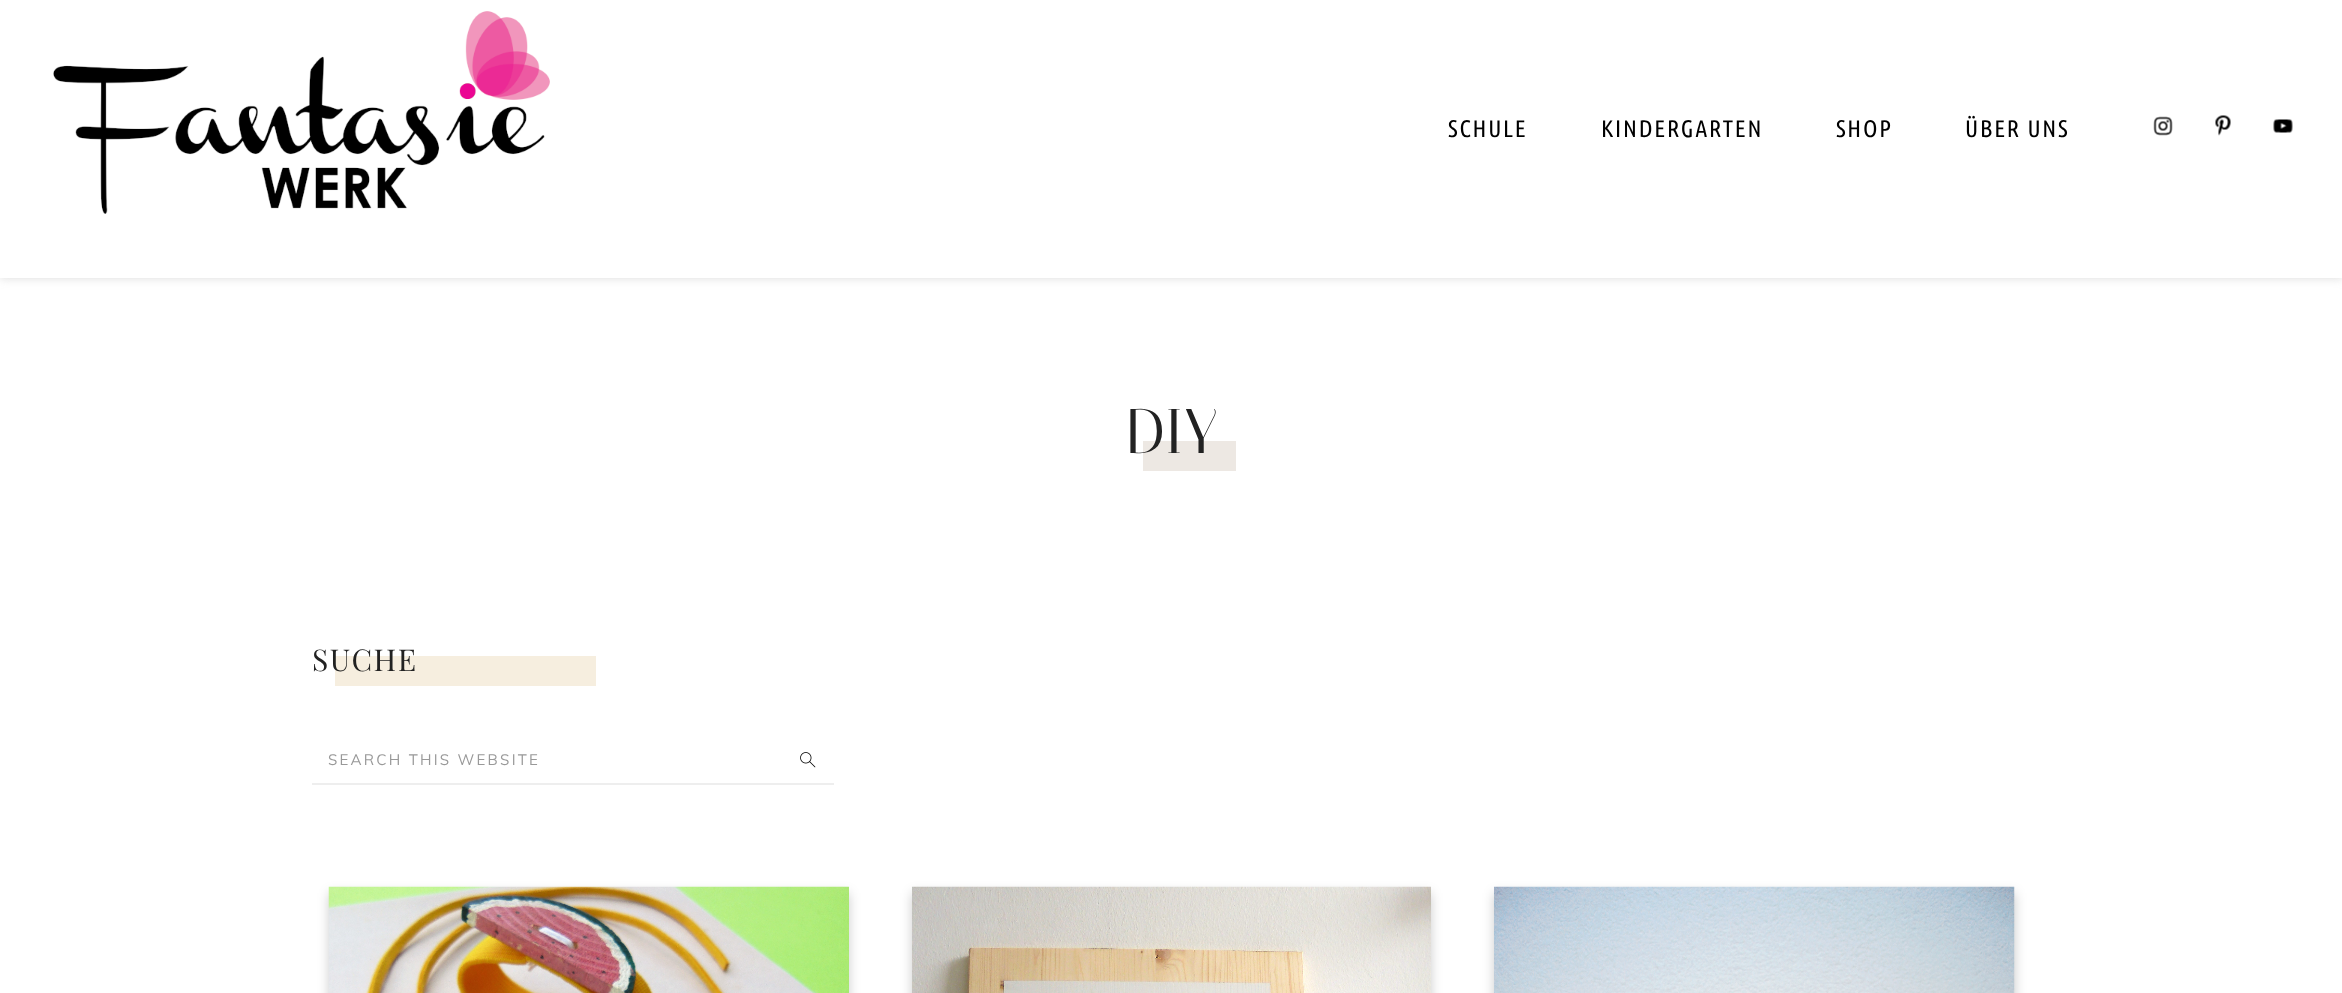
<!DOCTYPE html>
<meta charset="utf-8">
<style>body { margin: 0 } canvas { display: block }</style>
<canvas id="canvas" width="2342" height="993"></canvas>
<script type="module">
  const canvas = document.getElementById("canvas");
  const g = canvas.getContext("2d");
  g.miterLimit = 4;
  g.fontKerning = "normal";
  function drawText(s, x, y, [font, color]) {
    g.font = font;
    g.fillStyle = color;
    g.fillText(s, x, y);
  }
  function fillBox(x, y, w, h, color) {
    g.fillStyle = color;
    g.fillRect(x, y, w, h);
  }
  async function drawPicture(src, x, y, w, h) {
    const img = new Image();
    img.src = src;
    await img.decode();
    g.drawImage(img, x, y, w, h);
  }

  const s1 = ["24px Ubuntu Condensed", "#000000"];
  const s2 = ["63px Italiana", "#222222"];
  const s3 = ["30px Playfair Display", "#222222"];
  const s4 = ["15px Muli", "#999999"];

  fillBox(0, 0, 2342, 993, "#FFFFFF");
  g.fillStyle = "rgba(190, 190, 190, 0.46)";
  g.filter = "blur(4px)";
  g.beginPath();
  g.rect(0, 2, 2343, 277);
  g.fill();
  g.filter = "none";
  fillBox(0, 0, 2342, 278, "#FFFFFF");
  await drawPicture("pic1.png", 53, 11, 497, 203);
  g.letterSpacing = "1.75px";
  drawText("SCHULE", 1448, 137, s1);
  drawText("KINDERGARTEN", 1601, 137, s1);
  drawText("SHOP", 1836, 137, s1);
  drawText("ÜBER UNS", 1965, 137, s1);
  await drawPicture("pic2.png", 2153, 116, 20, 20);
  await drawPicture("pic3.png", 2215, 115, 16, 21);
  await drawPicture("pic4.png", 2273, 119, 20, 14);
  fillBox(1143, 441, 93, 30, "#EDE8E3");
  g.letterSpacing = "0px";
  drawText("DIY", 1126, 453, s2);
  fillBox(335, 656, 261, 30, "#F6EEDF");
  g.letterSpacing = "1.5px";
  drawText("SUCHE", 312, 671, s3);
  fillBox(312, 783, 522, 2, "#EEEEEE");
  await drawPicture("pic5.png", 800, 752, 16, 16);
  g.letterSpacing = "2.25px";
  drawText("SEARCH THIS WEBSITE", 328, 765, s4);
  g.fillStyle = "rgba(0, 0, 0, 0.2)";
  g.filter = "blur(6px)";
  g.beginPath();
  g.rect(329, 893, 520, 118);
  g.fill();
  g.filter = "none";
  await drawPicture("pic6.png", 328, 886, 521, 107);
  g.filter = "blur(6px)";
  g.beginPath();
  g.rect(912, 893, 519, 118);
  g.fill();
  g.filter = "none";
  await drawPicture("pic7.png", 912, 886, 519, 107);
  g.filter = "blur(6px)";
  g.beginPath();
  g.rect(1494, 893, 521, 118);
  g.fill();
  g.filter = "none";
  await drawPicture("pic8.png", 1494, 886, 521, 107);
</script>
